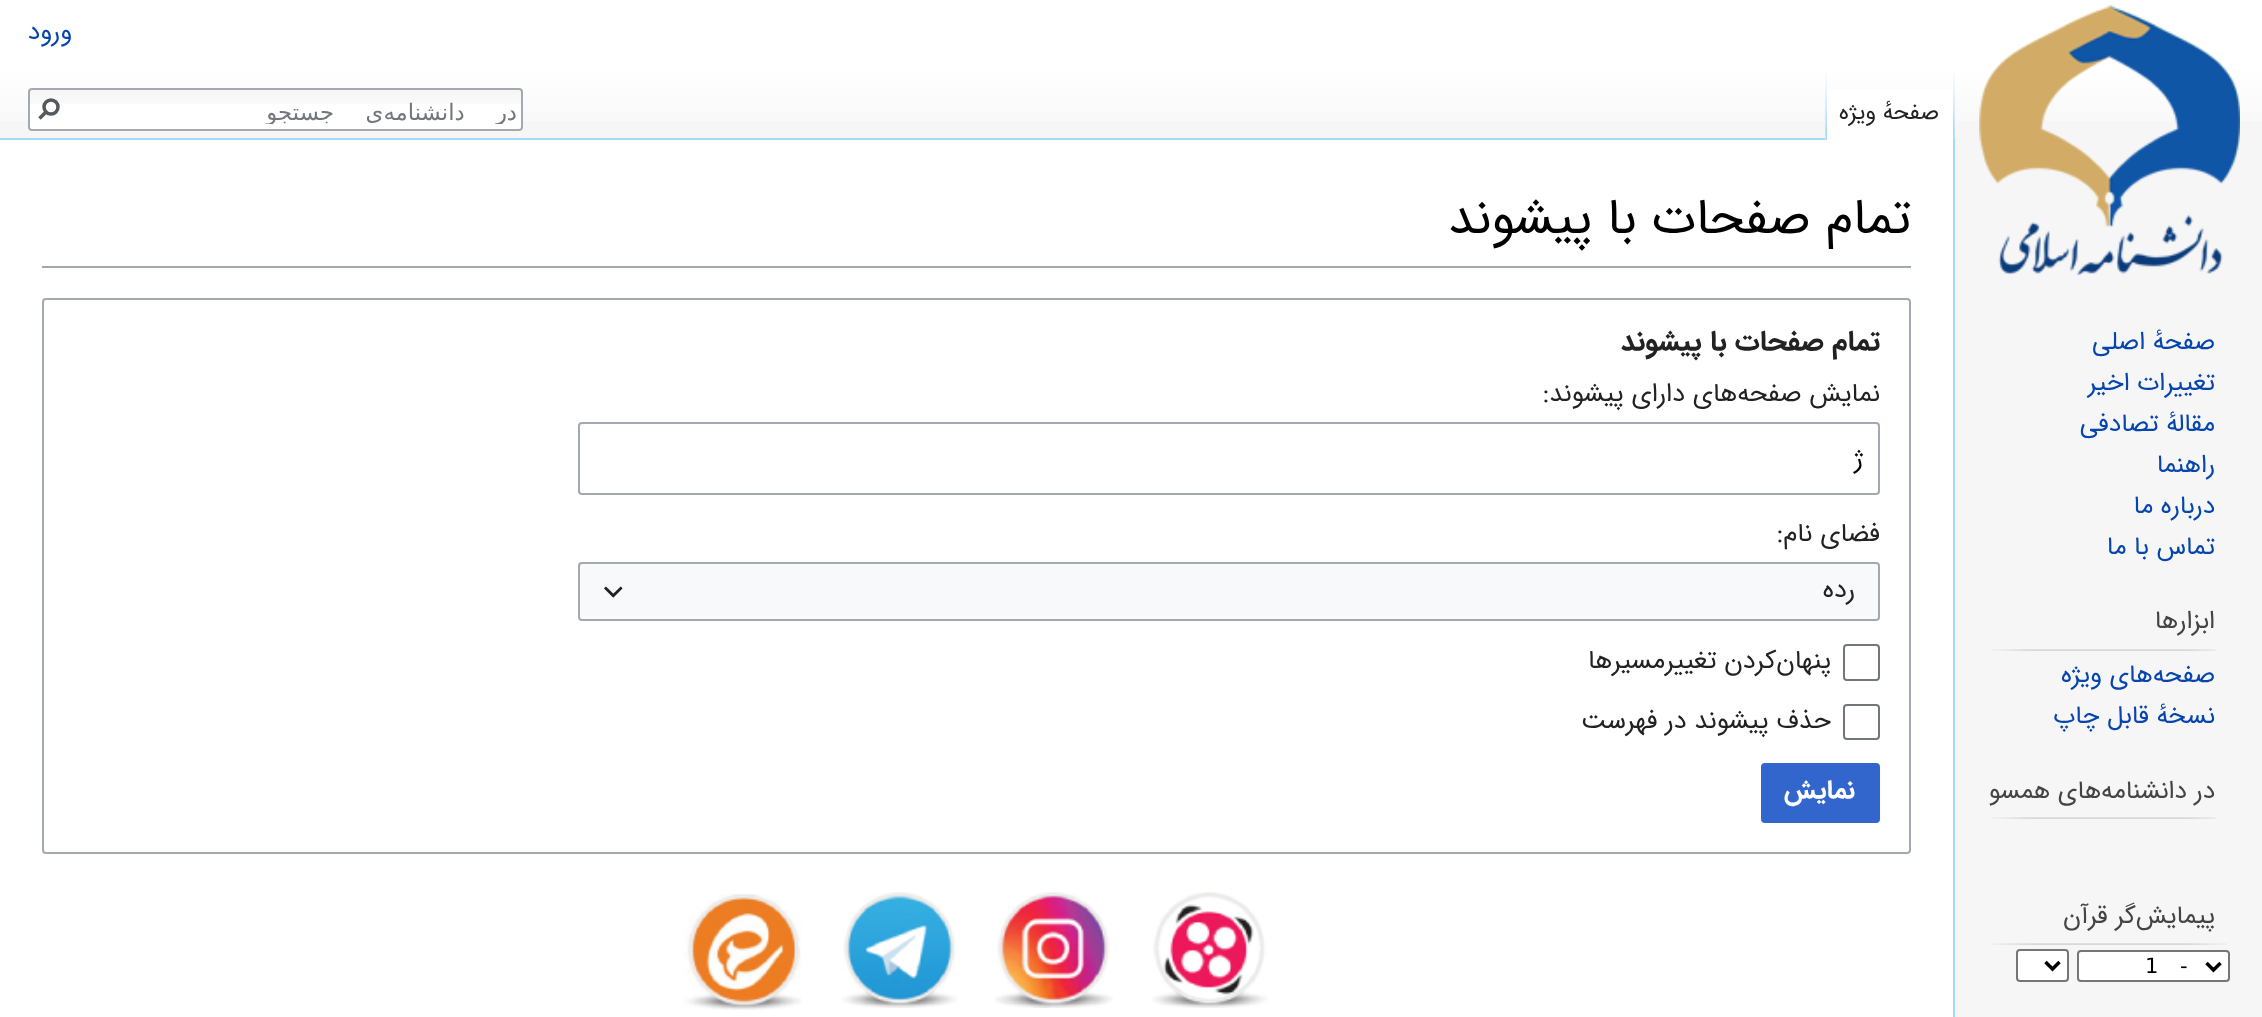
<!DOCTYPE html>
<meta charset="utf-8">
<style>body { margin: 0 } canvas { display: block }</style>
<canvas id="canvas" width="2262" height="1017"></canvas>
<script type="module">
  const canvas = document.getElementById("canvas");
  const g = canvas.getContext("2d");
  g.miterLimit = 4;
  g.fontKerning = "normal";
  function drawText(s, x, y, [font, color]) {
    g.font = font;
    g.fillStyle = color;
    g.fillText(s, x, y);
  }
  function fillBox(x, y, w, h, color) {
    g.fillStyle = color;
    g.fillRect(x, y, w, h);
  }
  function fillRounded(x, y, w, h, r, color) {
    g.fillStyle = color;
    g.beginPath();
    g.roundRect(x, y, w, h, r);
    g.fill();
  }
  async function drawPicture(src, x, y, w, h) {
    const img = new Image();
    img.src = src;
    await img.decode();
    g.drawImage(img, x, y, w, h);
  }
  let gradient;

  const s1 = ["25.25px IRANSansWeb", "#0645AD"];
  const s2 = ["22.75px IRANSansWeb", "#222222"];
  const s3 = ["22.75px DejaVu Sans", "#72777D"];
  const s4 = ["25.25px IRANSansWeb", "#444444"];
  const s5 = ["21px DejaVu Sans", "#000000"];
  const s6 = ["50.5px IRANSansWeb", "#000000"];
  const s7 = ["bold 28.25px IRANSansWeb", "#222222"];
  const s8 = ["26px IRANSansWeb", "#222222"];
  const s9 = ["26px IRANSansWeb", "#000000"];
  const s10 = ["bold 26px IRANSansWeb", "#FFFFFF"];

  fillBox(0, 0, 2262, 1017, "#F6F6F6");
  gradient = g.createLinearGradient(1131, 0, 1131, 140);
  gradient.addColorStop(0.5, "#FFFFFF");
  gradient.addColorStop(1, "#F6F6F6");
  g.fillStyle = gradient;
  g.fillRect(0, 0, 2262, 121);
  g.direction = "rtl";
  drawText("ورود", 72, 39, s1);
  await drawPicture("pic1.png", 1953, 70, 2, 68);
  fillBox(1825, 89, 128, 51, "#FFFFFF");
  await drawPicture("pic2.png", 1825, 70, 2, 70);
  drawText("صفحهٔ ویژه", 1939, 119, s2);
  fillRounded(28, 88, 495, 43, 4, "#FFFFFF");
  await drawPicture("pic3.png", 28, 89, 495, 15);
  g.beginPath();
  g.roundRect(29, 89, 493, 41, 3);
  g.strokeStyle = "#A2A9B1";
  g.lineWidth = 2;
  g.stroke();
  g.save();
  g.beginPath();
  g.rect(91, 98, 425, 26);
  g.clip();
  g.wordSpacing = "24px";
  drawText("در دانشنامه‌ی", 517, 120, s3);
  g.wordSpacing = "0px";
  drawText("جستجو", 334, 120, s3);
  g.restore();
  g.beginPath();
  g.moveTo(39.5, 118.5);
  g.lineTo(46.5, 111.5);
  g.strokeStyle = "#54595D";
  g.lineWidth = 3.5;
  g.stroke();
  g.beginPath();
  g.arc(51, 107, 7, 0, Math.PI * 2);
  g.stroke();
  await drawPicture("pic4.png", 1979, 5, 261, 270);
  drawText("صفحهٔ اصلی", 2215, 349, s1);
  drawText("تغییرات اخیر", 2215, 390, s1);
  drawText("مقالهٔ تصادفی", 2215, 431, s1);
  drawText("راهنما", 2215, 472, s1);
  drawText("درباره ما", 2215, 513, s1);
  drawText("تماس با ما", 2215, 554, s1);
  drawText("ابزارها", 2215, 628, s4);
  await drawPicture("pic5.png", 1991, 649, 225, 2);
  drawText("صفحه‌های ویژه", 2215, 682, s1);
  drawText("نسخهٔ قابل چاپ", 2215, 723, s1);
  drawText("در دانشنامه‌های همسو", 2215, 798, s4);
  await drawPicture("pic5.png", 1991, 817, 225, 2);
  drawText("پیمایش‌گر قرآن", 2215, 923, s4);
  await drawPicture("pic6.png", 1991, 943, 237, 2);
  g.fillStyle = "#FFFFFF";
  g.beginPath();
  g.roundRect(2078, 951, 151, 30, 3);
  g.fill();
  g.strokeStyle = "#767676";
  g.lineWidth = 2;
  g.stroke();
  g.beginPath();
  g.moveTo(2206.5, 963);
  g.lineTo(2213.5, 970);
  g.lineTo(2220.5, 963);
  g.strokeStyle = "#000000";
  g.lineWidth = 3.5;
  g.stroke();
  g.wordSpacing = "15px";
  g.direction = "ltr";
  drawText("1 -", 2145, 973, s5);
  g.fillStyle = "#FFFFFF";
  g.beginPath();
  g.roundRect(2017, 950, 51, 31, 3);
  g.fill();
  g.strokeStyle = "#767676";
  g.lineWidth = 2;
  g.stroke();
  g.beginPath();
  g.moveTo(2045.5, 962);
  g.lineTo(2052.5, 969);
  g.lineTo(2059.5, 962);
  g.strokeStyle = "#000000";
  g.lineWidth = 3.5;
  g.stroke();
  fillBox(0, 140, 1953, 877, "#FFFFFF");
  fillBox(0, 138, 1825, 2, "#A7D7F9");
  fillBox(1953, 138, 2, 879, "#A7D7F9");
  fillBox(42, 266, 1869, 2, "#A2A9B1");
  g.wordSpacing = "0px";
  g.direction = "rtl";
  drawText("تمام صفحات با پیشوند", 1911, 233, s6);
  g.beginPath();
  g.roundRect(43, 299, 1867, 554, 3);
  g.strokeStyle = "#A2A9B1";
  g.lineWidth = 2;
  g.stroke();
  drawText("تمام صفحات با پیشوند", 1880, 350, s7);
  drawText("نمایش صفحه‌های دارای پیشوند:", 1880, 401, s8);
  g.beginPath();
  g.roundRect(579, 423, 1300, 71, 3);
  g.stroke();
  drawText("ژ", 1863, 466, s9);
  drawText("فضای نام:", 1880, 541, s8);
  g.fillStyle = "#F8F9FA";
  g.beginPath();
  g.roundRect(579, 563, 1300, 57, 3);
  g.fill();
  g.stroke();
  drawText("رده", 1855, 597, s8);
  await drawPicture("pic7.png", 604, 586, 19, 12);
  g.beginPath();
  g.roundRect(1844, 645, 35, 35, 3);
  g.strokeStyle = "#72777D";
  g.stroke();
  drawText("پنهان‌کردن تغییرمسیرها", 1831, 668, s8);
  g.beginPath();
  g.roundRect(1844, 705, 35, 34, 3);
  g.stroke();
  drawText("حذف پیشوند در فهرست", 1831, 728, s8);
  g.fillStyle = "#3366CC";
  g.beginPath();
  g.roundRect(1762, 764, 117, 58, 3);
  g.fill();
  g.strokeStyle = "#3366CC";
  g.stroke();
  drawText("نمایش", 1855, 798, s10);
  await drawPicture("pic8.png", 1152, 892, 116, 116);
  await drawPicture("pic9.png", 995, 892, 118, 116);
  await drawPicture("pic10.png", 842, 892, 116, 116);
  await drawPicture("pic11.png", 683, 894, 119, 116);
</script>
